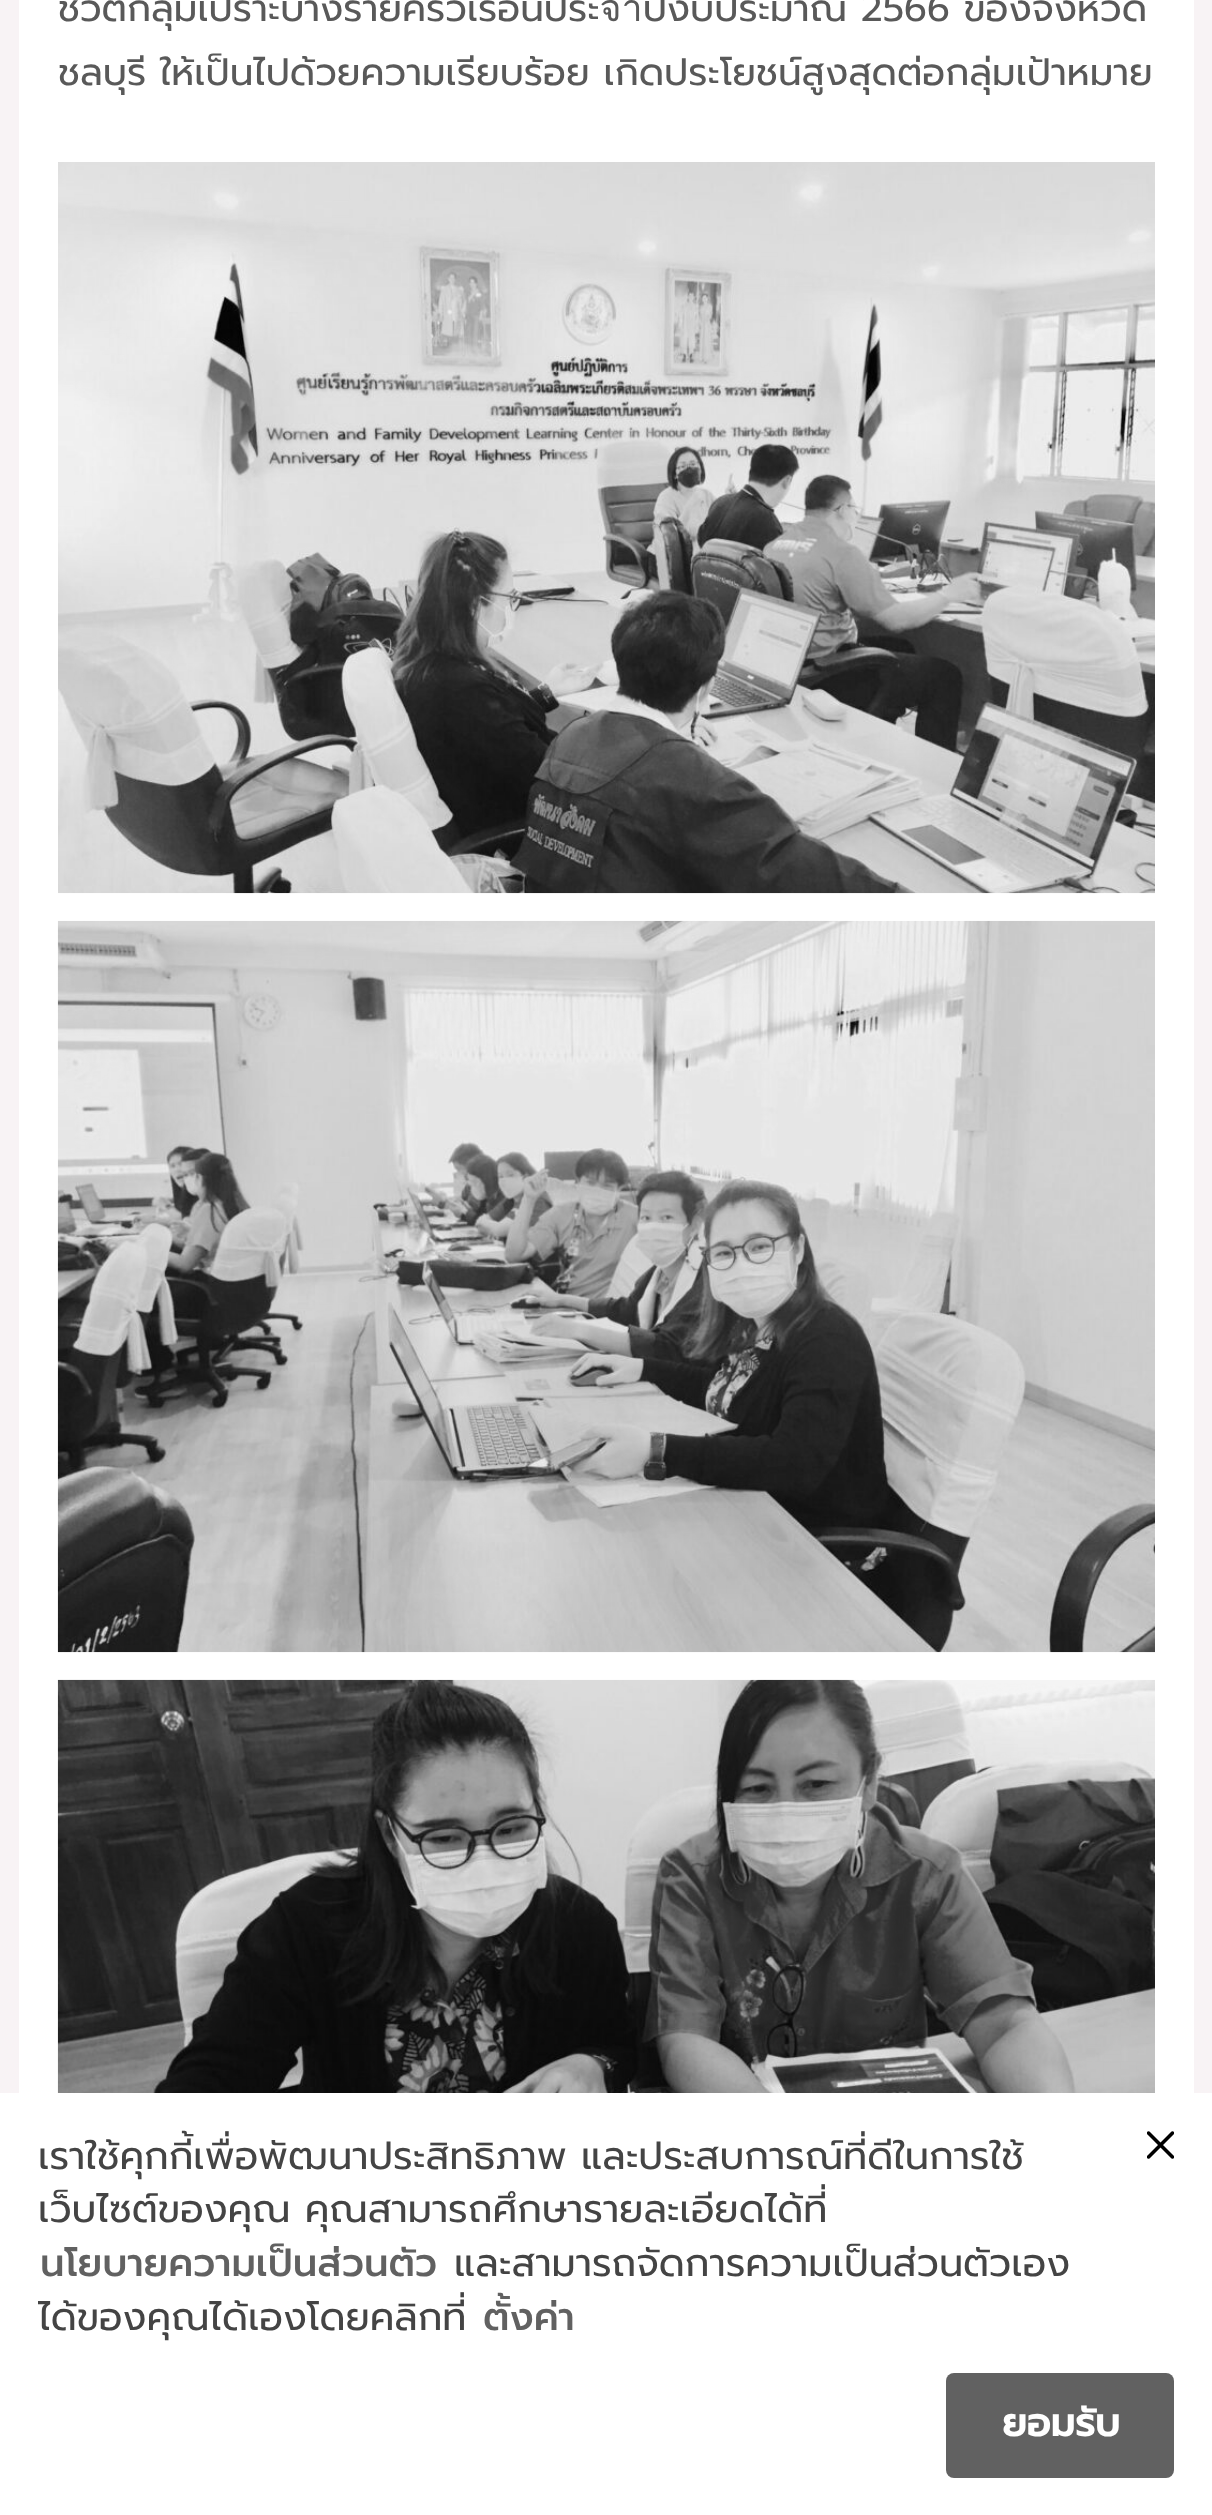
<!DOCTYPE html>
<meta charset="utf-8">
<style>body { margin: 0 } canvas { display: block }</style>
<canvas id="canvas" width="1212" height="2515"></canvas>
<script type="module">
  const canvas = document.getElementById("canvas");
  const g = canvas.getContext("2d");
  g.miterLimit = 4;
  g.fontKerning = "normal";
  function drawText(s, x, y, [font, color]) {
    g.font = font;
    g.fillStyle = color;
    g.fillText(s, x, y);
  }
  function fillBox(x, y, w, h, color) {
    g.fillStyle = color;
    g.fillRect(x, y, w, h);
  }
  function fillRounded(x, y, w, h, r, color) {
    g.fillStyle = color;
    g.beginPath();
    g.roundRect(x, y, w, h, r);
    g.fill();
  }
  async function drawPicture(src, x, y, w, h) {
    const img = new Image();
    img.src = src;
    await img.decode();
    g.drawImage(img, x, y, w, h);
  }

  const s1 = ["37.6px Prompt", "#595959"];
  const s2 = ["38.5px Prompt", "#444444"];
  const s3 = ["500 38.5px Prompt", "#616161"];
  const s4 = ["bold 38.5px Prompt", "#FFFFFF"];

  fillBox(0, 0, 1212, 2515, "#F8F3F5");
  fillBox(19, 0, 1175, 2093, "#FFFFFF");
  drawText("ชีวิตกลุ่มเปราะบางรายครัวเรือนประจำปีงบประมาณ 2566 ของจังหวัด", 58, 21, s1);
  drawText("ชลบุรี ให้เป็นไปด้วยความเรียบร้อย เกิดประโยชน์สูงสุดต่อกลุ่มเป้าหมาย", 58, 85, s1);
  await drawPicture("pic1.png", 58, 162, 1097, 732);
  await drawPicture("pic2.png", 57, 920, 1098, 733);
  await drawPicture("pic3.png", 57, 1679, 1098, 414);
  fillBox(0, 2093, 1212, 422, "#FFFFFF");
  drawText("เราใช้คุกกี้เพื่อพัฒนาประสิทธิภาพ และประสบการณ์ที่ดีในการใช้", 38, 2169, s2);
  drawText("เว็บไซต์ของคุณ คุณสามารถศึกษารายละเอียดได้ที่", 38, 2222, s2);
  drawText("นโยบายความเป็นส่วนตัว", 40, 2276, s3);
  drawText("และสามารถจัดการความเป็นส่วนตัวเอง", 454, 2276, s2);
  drawText("ได้ของคุณได้เองโดยคลิกที่", 38, 2330, s2);
  drawText("ตั้งค่า", 483, 2330, s3);
  await drawPicture("pic4.png", 1147, 2131, 27, 28);
  fillRounded(946, 2373, 228, 105, 8, "#616161");
  drawText("ยอมรับ", 1002, 2436, s4);
</script>
